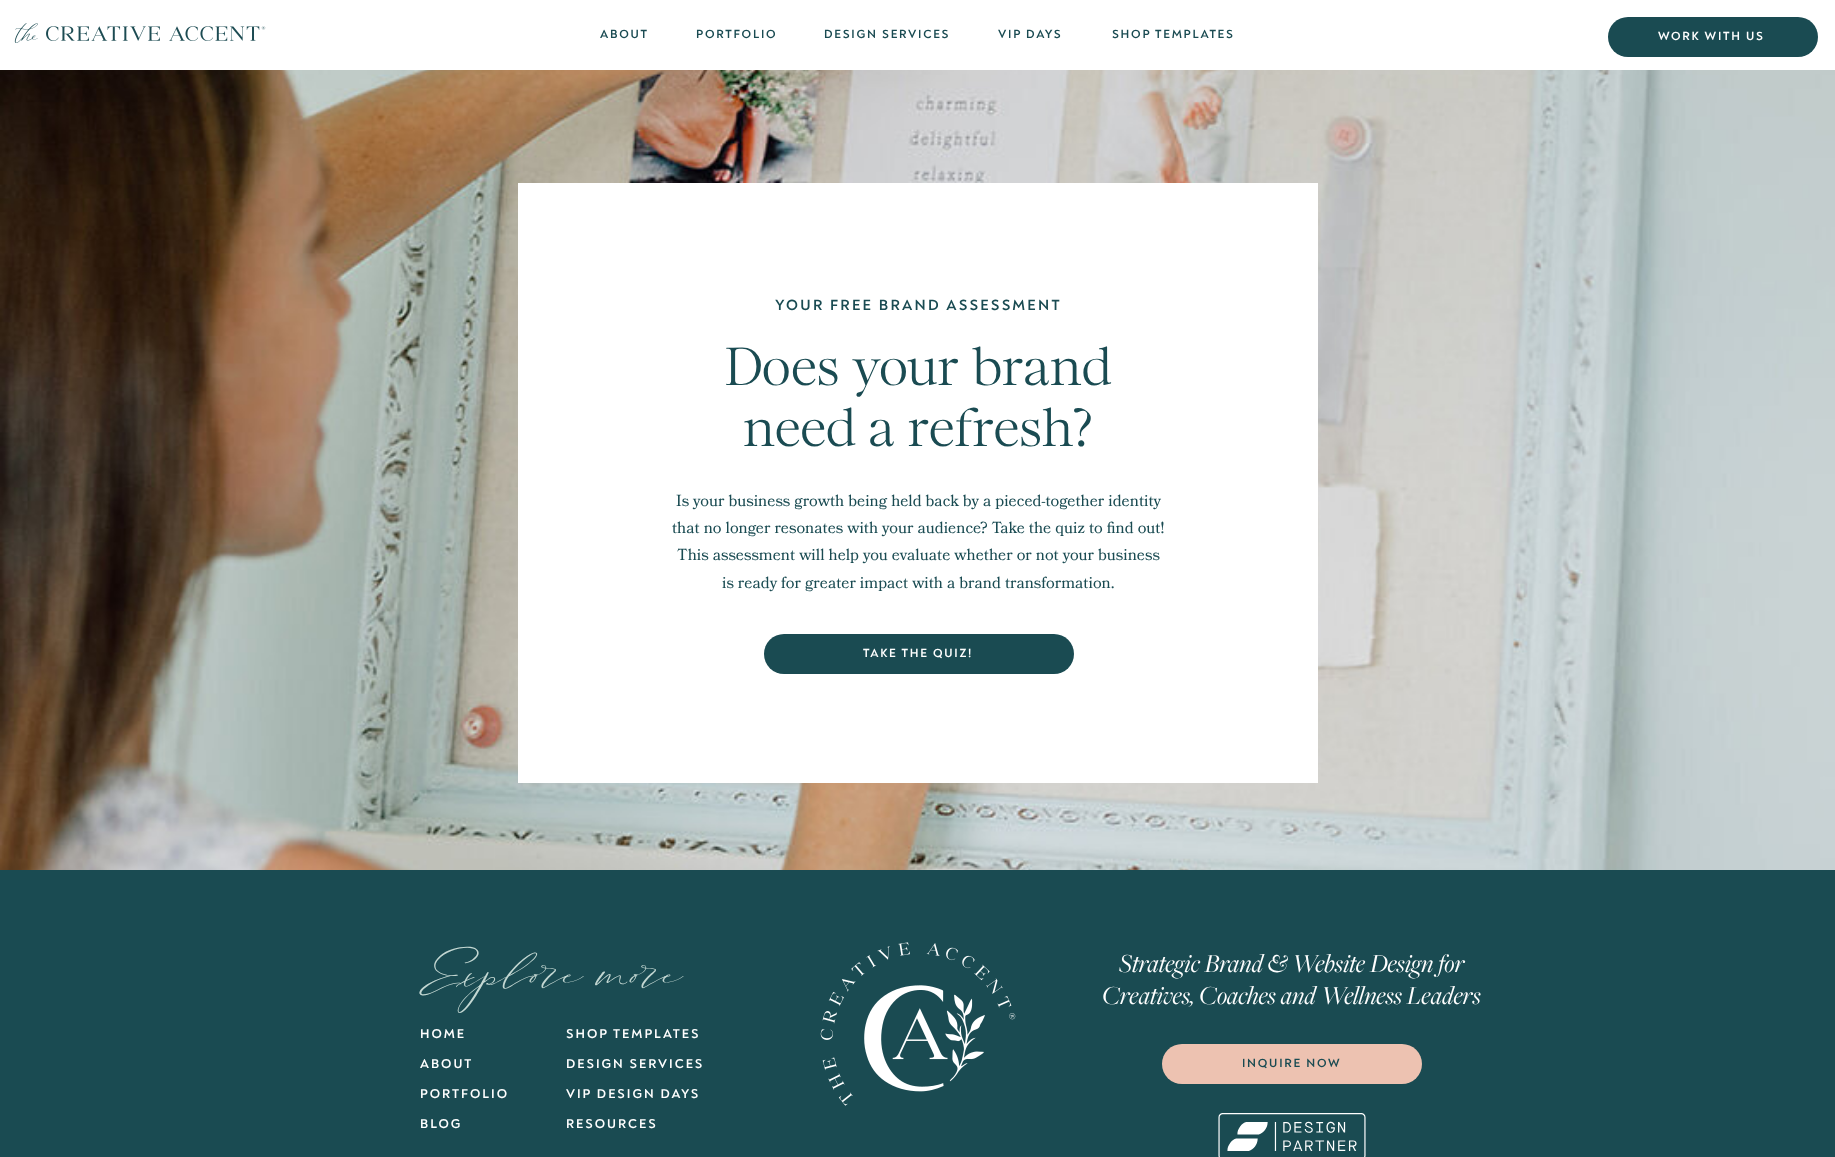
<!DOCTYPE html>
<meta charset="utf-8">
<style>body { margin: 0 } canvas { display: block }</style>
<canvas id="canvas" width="1835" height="1157"></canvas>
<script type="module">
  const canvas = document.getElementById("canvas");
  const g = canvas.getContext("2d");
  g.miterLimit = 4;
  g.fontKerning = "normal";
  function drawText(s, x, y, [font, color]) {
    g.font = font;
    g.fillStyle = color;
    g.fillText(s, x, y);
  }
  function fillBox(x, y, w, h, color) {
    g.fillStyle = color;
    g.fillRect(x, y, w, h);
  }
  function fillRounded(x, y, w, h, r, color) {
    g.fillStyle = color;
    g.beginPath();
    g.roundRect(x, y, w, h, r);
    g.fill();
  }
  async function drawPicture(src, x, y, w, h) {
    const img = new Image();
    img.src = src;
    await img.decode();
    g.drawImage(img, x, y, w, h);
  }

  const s1 = ["bold 12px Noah", "#1A4B52"];
  const s2 = ["bold 12px Noah", "#FFFFFF"];
  const s3 = ["bold 15px Noah", "#1A4B52"];
  const s4 = ["55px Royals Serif", "#1A4B52"];
  const s5 = ["16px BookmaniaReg", "#1A4B52"];
  const s6 = ["68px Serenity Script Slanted", "#C3D7D2"];
  const s7 = ["italic 27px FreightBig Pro", "#FFFFFF"];
  const s8 = ["bold 13px Noah", "#FFFFFF"];

  fillBox(0, 0, 1835, 1157, "#FFFFFF");
  await drawPicture("pic1.png", 14, 23, 252, 20);
  g.letterSpacing = "1.75px";
  drawText("ABOUT", 600, 38, s1);
  drawText("PORTFOLIO", 696, 38, s1);
  drawText("DESIGN SERVICES", 824, 38, s1);
  drawText("VIP DAYS", 998, 38, s1);
  drawText("SHOP TEMPLATES", 1112, 38, s1);
  fillRounded(1608, 17, 210, 40, 20, "#1A4B52");
  drawText("WORK WITH US", 1658, 40, s2);
  await drawPicture("pic2.png", 0, 70, 1835, 800);
  fillBox(518, 183, 800, 600, "#FFFFFF");
  g.letterSpacing = "2.25px";
  drawText("YOUR FREE BRAND ASSESSMENT", 775, 310, s3);
  g.letterSpacing = "0px";
  drawText("Does your brand", 724, 385, s4);
  drawText("need a refresh?", 743, 446, s4);
  drawText("Is your business growth being held back by a pieced-together identity", 676, 506, s5);
  drawText("that no longer resonates with your audience? Take the quiz to find out!", 672, 533, s5);
  drawText("This assessment will help you evaluate whether or not your business", 677, 560, s5);
  drawText("is ready for greater impact with a brand transformation.", 722, 588, s5);
  fillRounded(764, 634, 310, 40, 20, "#1A4B52");
  g.letterSpacing = "1.75px";
  drawText("TAKE THE QUIZ!", 863, 657, s2);
  fillBox(0, 870, 1835, 287, "#1A4B52");
  g.letterSpacing = "0px";
  drawText("Explore more", 425, 982, s6);
  await drawPicture("pic3.png", 820, 942, 196, 164);
  drawText("Strategic Brand & Website Design for", 1119, 972, s7);
  drawText("Creatives, Coaches and Wellness Leaders", 1102, 1004, s7);
  g.letterSpacing = "2px";
  drawText("HOME", 420, 1038, s8);
  drawText("SHOP TEMPLATES", 566, 1038, s8);
  drawText("ABOUT", 420, 1068, s8);
  drawText("DESIGN SERVICES", 566, 1068, s8);
  fillRounded(1162, 1044, 260, 40, 20, "#EDC2B1");
  g.letterSpacing = "1.75px";
  drawText("INQUIRE NOW", 1242, 1067, s1);
  g.letterSpacing = "2px";
  drawText("PORTFOLIO", 420, 1098, s8);
  drawText("VIP DESIGN DAYS", 566, 1098, s8);
  drawText("BLOG", 420, 1128, s8);
  drawText("RESOURCES", 566, 1128, s8);
  await drawPicture("pic4.png", 1218, 1113, 148, 44);
</script>
